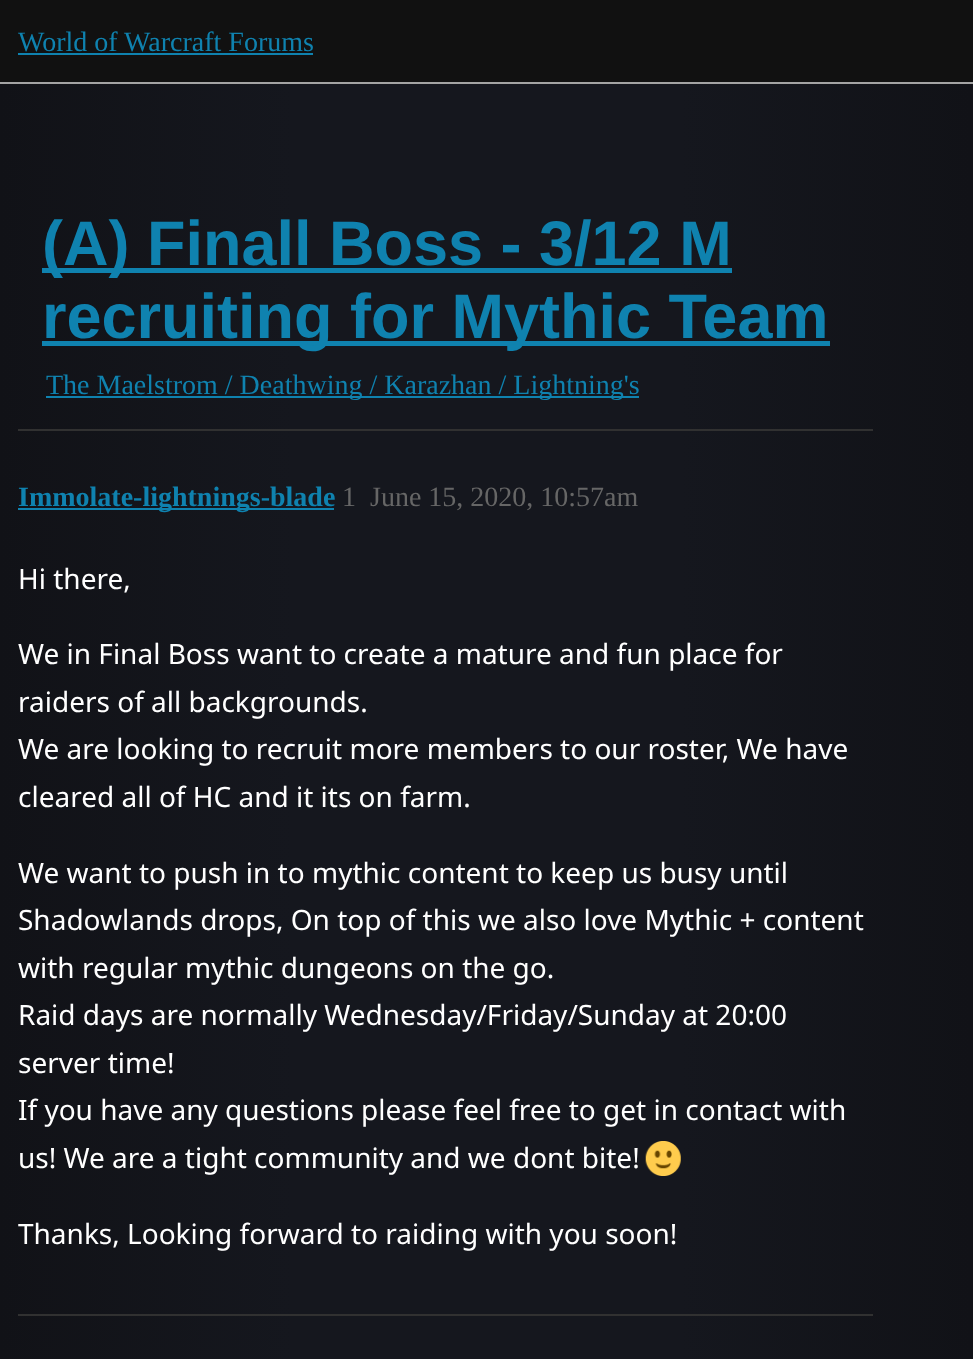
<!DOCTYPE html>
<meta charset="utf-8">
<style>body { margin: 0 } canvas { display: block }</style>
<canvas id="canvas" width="973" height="1359"></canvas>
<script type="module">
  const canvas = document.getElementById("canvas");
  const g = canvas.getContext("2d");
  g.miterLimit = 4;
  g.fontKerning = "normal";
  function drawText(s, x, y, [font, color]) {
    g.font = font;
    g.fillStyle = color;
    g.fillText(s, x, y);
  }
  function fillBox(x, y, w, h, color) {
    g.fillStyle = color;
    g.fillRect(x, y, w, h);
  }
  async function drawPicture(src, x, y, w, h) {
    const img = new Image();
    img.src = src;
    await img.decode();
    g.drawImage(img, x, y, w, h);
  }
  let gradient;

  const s1 = ["28px Liberation Serif", "#0F82AF"];
  const s2 = ["bold 63px Liberation Sans", "#0F82AF"];
  const s3 = ["bold 28px Liberation Serif", "#0F82AF"];
  const s4 = ["28px Liberation Serif", "#666666"];
  const s5 = ["28px Noto Sans", "#FFFFFF"];

  fillBox(0, 0, 973, 1359, "#FFFFFF");
  gradient = g.createLinearGradient(0, 936, 973, 936);
  gradient.addColorStop(0, "#111217");
  gradient.addColorStop(0.3, "#15171E");
  gradient.addColorStop(0.7, "#15171E");
  gradient.addColorStop(1, "#111217");
  g.fillStyle = gradient;
  g.fillRect(0, 84, 973, 1275);
  fillBox(0, 0, 973, 82, "#111111");
  fillBox(0, 82, 973, 2, "#A4A4A4");
  drawText("World of Warcraft Forums", 18, 51, s1);
  fillBox(18, 53, 295, 2, "#0F82AF");
  fillBox(42, 268, 690, 5, "#0F82AF");
  drawText("(A) Finall Boss - 3/12 M", 42, 265, s2);
  fillBox(42, 341, 788, 5, "#0F82AF");
  drawText("recruiting for Mythic Team", 42, 338, s2);
  fillBox(46, 396, 593, 2, "#0F82AF");
  drawText("The Maelstrom / Deathwing / Karazhan / Lightning's", 46, 394, s1);
  fillBox(18, 429, 855, 2, "#313131");
  fillBox(18, 508, 316, 2, "#0F82AF");
  drawText("Immolate-lightnings-blade", 18, 506, s3);
  drawText("1", 342, 506, s4);
  drawText("June 15, 2020, 10:57am", 370, 506, s4);
  drawText("Hi there,", 18, 589, s5);
  drawText("We in Final Boss want to create a mature and fun place for", 18, 664, s5);
  drawText("raiders of all backgrounds.", 18, 712, s5);
  drawText("We are looking to recruit more members to our roster, We have", 18, 759, s5);
  drawText("cleared all of HC and it its on farm.", 18, 807, s5);
  drawText("We want to push in to mythic content to keep us busy until", 18, 883, s5);
  drawText("Shadowlands drops, On top of this we also love Mythic + content", 18, 930, s5);
  drawText("with regular mythic dungeons on the go.", 18, 978, s5);
  drawText("Raid days are normally Wednesday/Friday/Sunday at 20:00", 18, 1025, s5);
  drawText("server time!", 18, 1073, s5);
  drawText("If you have any questions please feel free to get in contact with", 18, 1120, s5);
  drawText("us! We are a tight community and we dont bite!", 18, 1168, s5);
  await drawPicture("pic1.png", 645, 1141, 36, 35);
  drawText("Thanks, Looking forward to raiding with you soon!", 18, 1244, s5);
  fillBox(18, 1314, 855, 2, "#313131");
</script>
